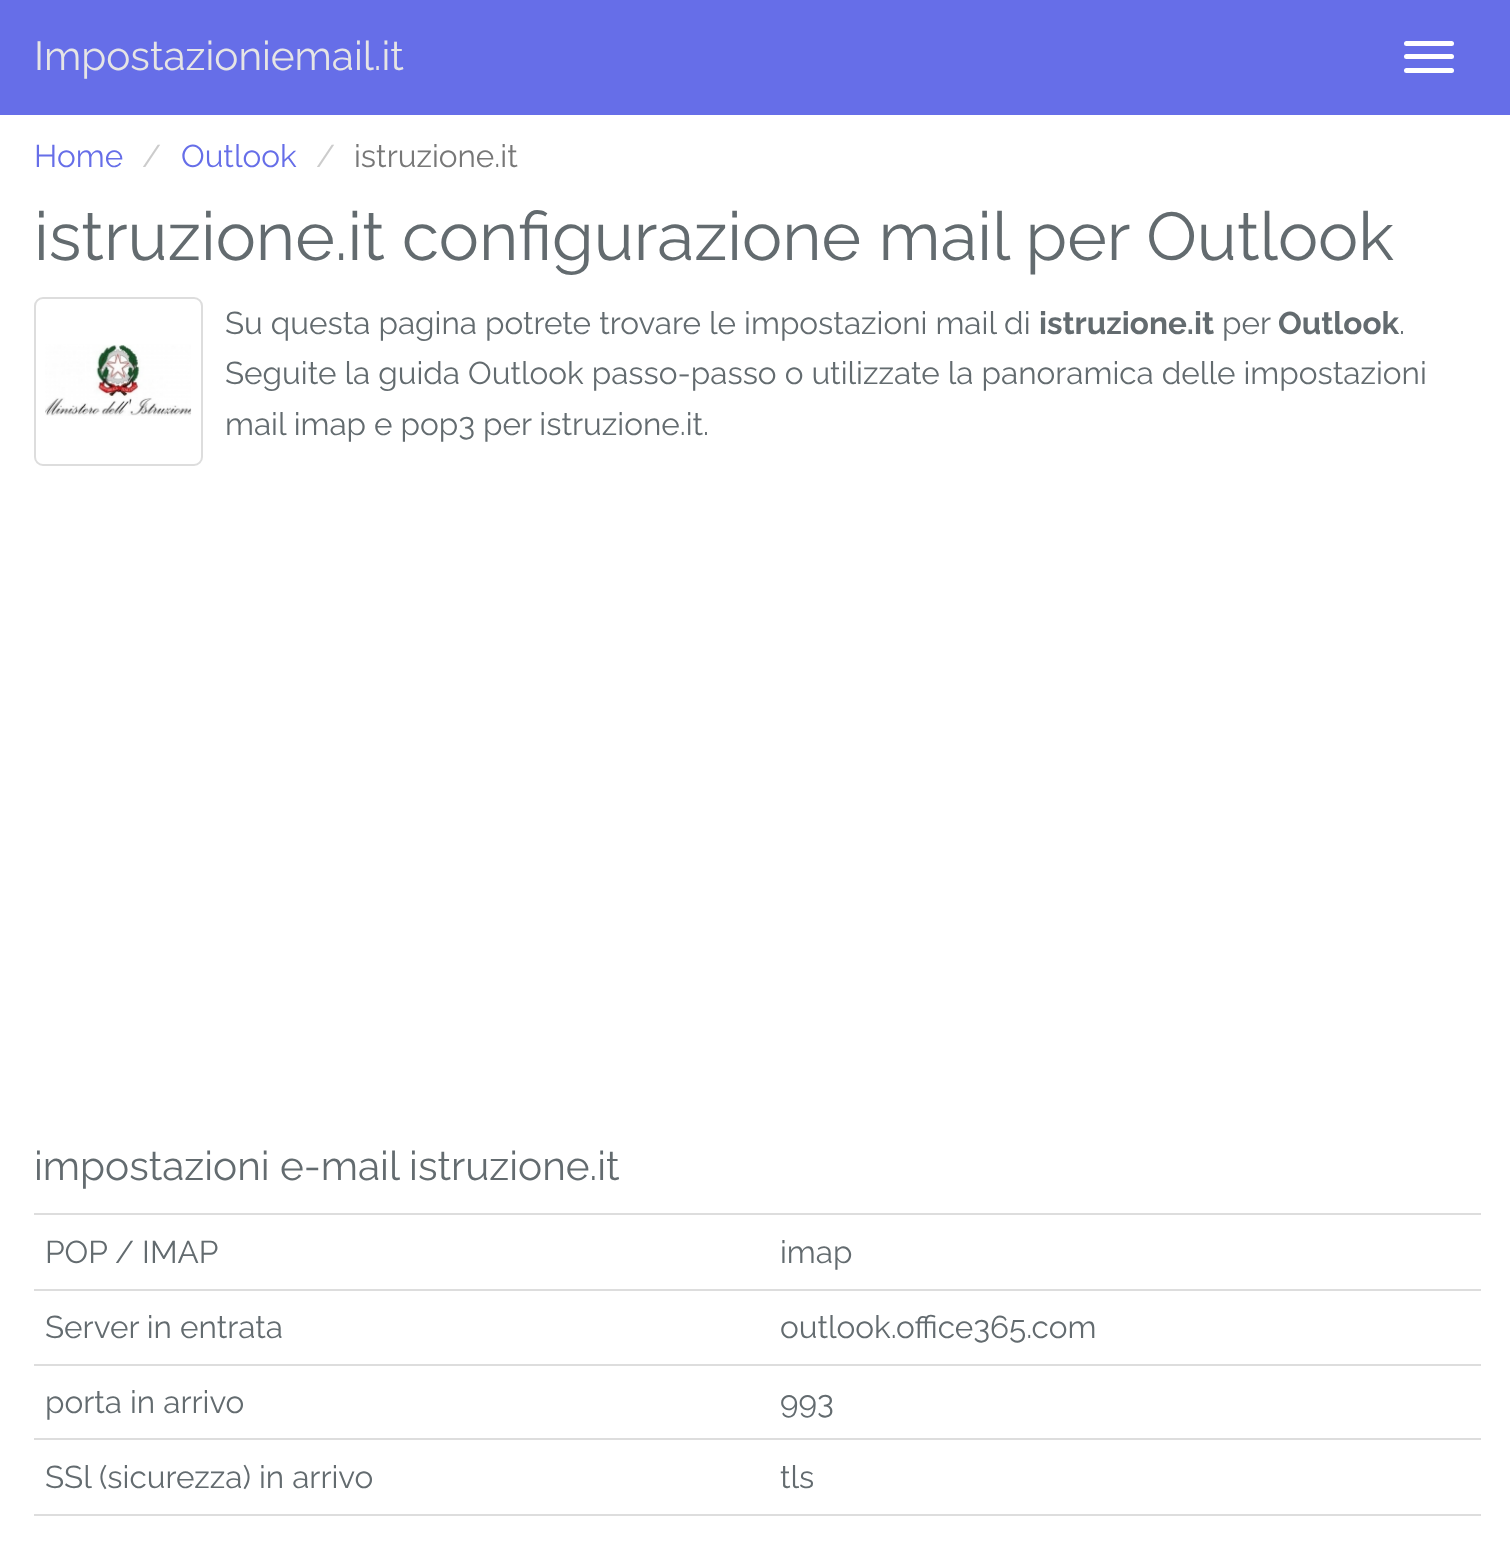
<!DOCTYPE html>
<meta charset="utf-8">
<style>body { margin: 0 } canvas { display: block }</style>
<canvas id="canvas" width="1510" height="1549"></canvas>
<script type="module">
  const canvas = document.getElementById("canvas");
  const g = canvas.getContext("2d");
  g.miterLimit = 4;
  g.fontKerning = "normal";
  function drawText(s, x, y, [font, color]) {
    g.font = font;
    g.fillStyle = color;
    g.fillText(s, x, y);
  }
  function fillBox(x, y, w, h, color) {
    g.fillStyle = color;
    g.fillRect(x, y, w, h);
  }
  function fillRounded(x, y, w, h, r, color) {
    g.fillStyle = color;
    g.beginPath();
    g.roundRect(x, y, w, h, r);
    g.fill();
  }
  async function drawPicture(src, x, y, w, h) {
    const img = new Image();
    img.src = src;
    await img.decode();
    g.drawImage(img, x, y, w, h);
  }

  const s1 = ["40.5px Raleway", "#E6E5E5"];
  const s2 = ["31.5px Raleway", "#666EE8"];
  const s3 = ["31.5px Raleway", "#CCCCCC"];
  const s4 = ["31.5px Raleway", "#777777"];
  const s5 = ["67.5px Raleway", "#636B6F"];
  const s6 = ["31.5px Raleway", "#636B6F"];
  const s7 = ["bold 31.5px Raleway", "#636B6F"];
  const s8 = ["40.5px Raleway", "#636B6F"];

  fillBox(0, 0, 1510, 1549, "#FFFFFF");
  fillBox(0, 0, 1510, 115, "#666EE8");
  drawText("Impostazioniemail.it", 34, 70, s1);
  fillRounded(1404, 41, 50, 5, 2.5, "#FFFFFF");
  fillRounded(1404, 54, 50, 5, 2.5, "#FFFFFF");
  fillRounded(1404, 68, 50, 5, 2.5, "#FFFFFF");
  drawText("Home", 34, 167, s2);
  drawText("/", 142, 167, s3);
  drawText("Outlook", 181, 167, s2);
  drawText("/", 316, 167, s3);
  drawText("istruzione.it", 354, 167, s4);
  drawText("istruzione.it configurazione mail per Outlook", 34, 260, s5);
  g.beginPath();
  g.roundRect(35, 298, 167, 167, 8);
  g.strokeStyle = "#DDDDDD";
  g.lineWidth = 2;
  g.stroke();
  await drawPicture("pic1.png", 45, 344, 147, 72);
  drawText("Su questa pagina potrete trovare le impostazioni mail di", 225, 334, s6);
  drawText("istruzione.it", 1039, 334, s7);
  drawText("per", 1222, 334, s6);
  drawText("Outlook", 1278, 334, s7);
  drawText(".", 1399, 334, s6);
  drawText("Seguite la guida Outlook passo-passo o utilizzate la panoramica delle impostazioni", 225, 384, s6);
  drawText("mail imap e pop3 per istruzione.it.", 225, 435, s6);
  drawText("impostazioni e-mail istruzione.it", 34, 1180, s8);
  drawText("POP / IMAP", 45, 1263, s6);
  fillBox(34, 1213, 1447, 2, "#DDDDDD");
  drawText("imap", 780, 1263, s6);
  drawText("Server in entrata", 45, 1338, s6);
  fillBox(34, 1289, 1447, 2, "#DDDDDD");
  drawText("outlook.office365.com", 780, 1338, s6);
  drawText("porta in arrivo", 45, 1413, s6);
  fillBox(34, 1364, 1447, 2, "#DDDDDD");
  drawText("993", 780, 1413, s6);
  drawText("SSl (sicurezza) in arrivo", 45, 1488, s6);
  fillBox(34, 1438, 1447, 2, "#DDDDDD");
  drawText("tls", 780, 1488, s6);
  fillBox(34, 1514, 1447, 2, "#DDDDDD");
</script>
